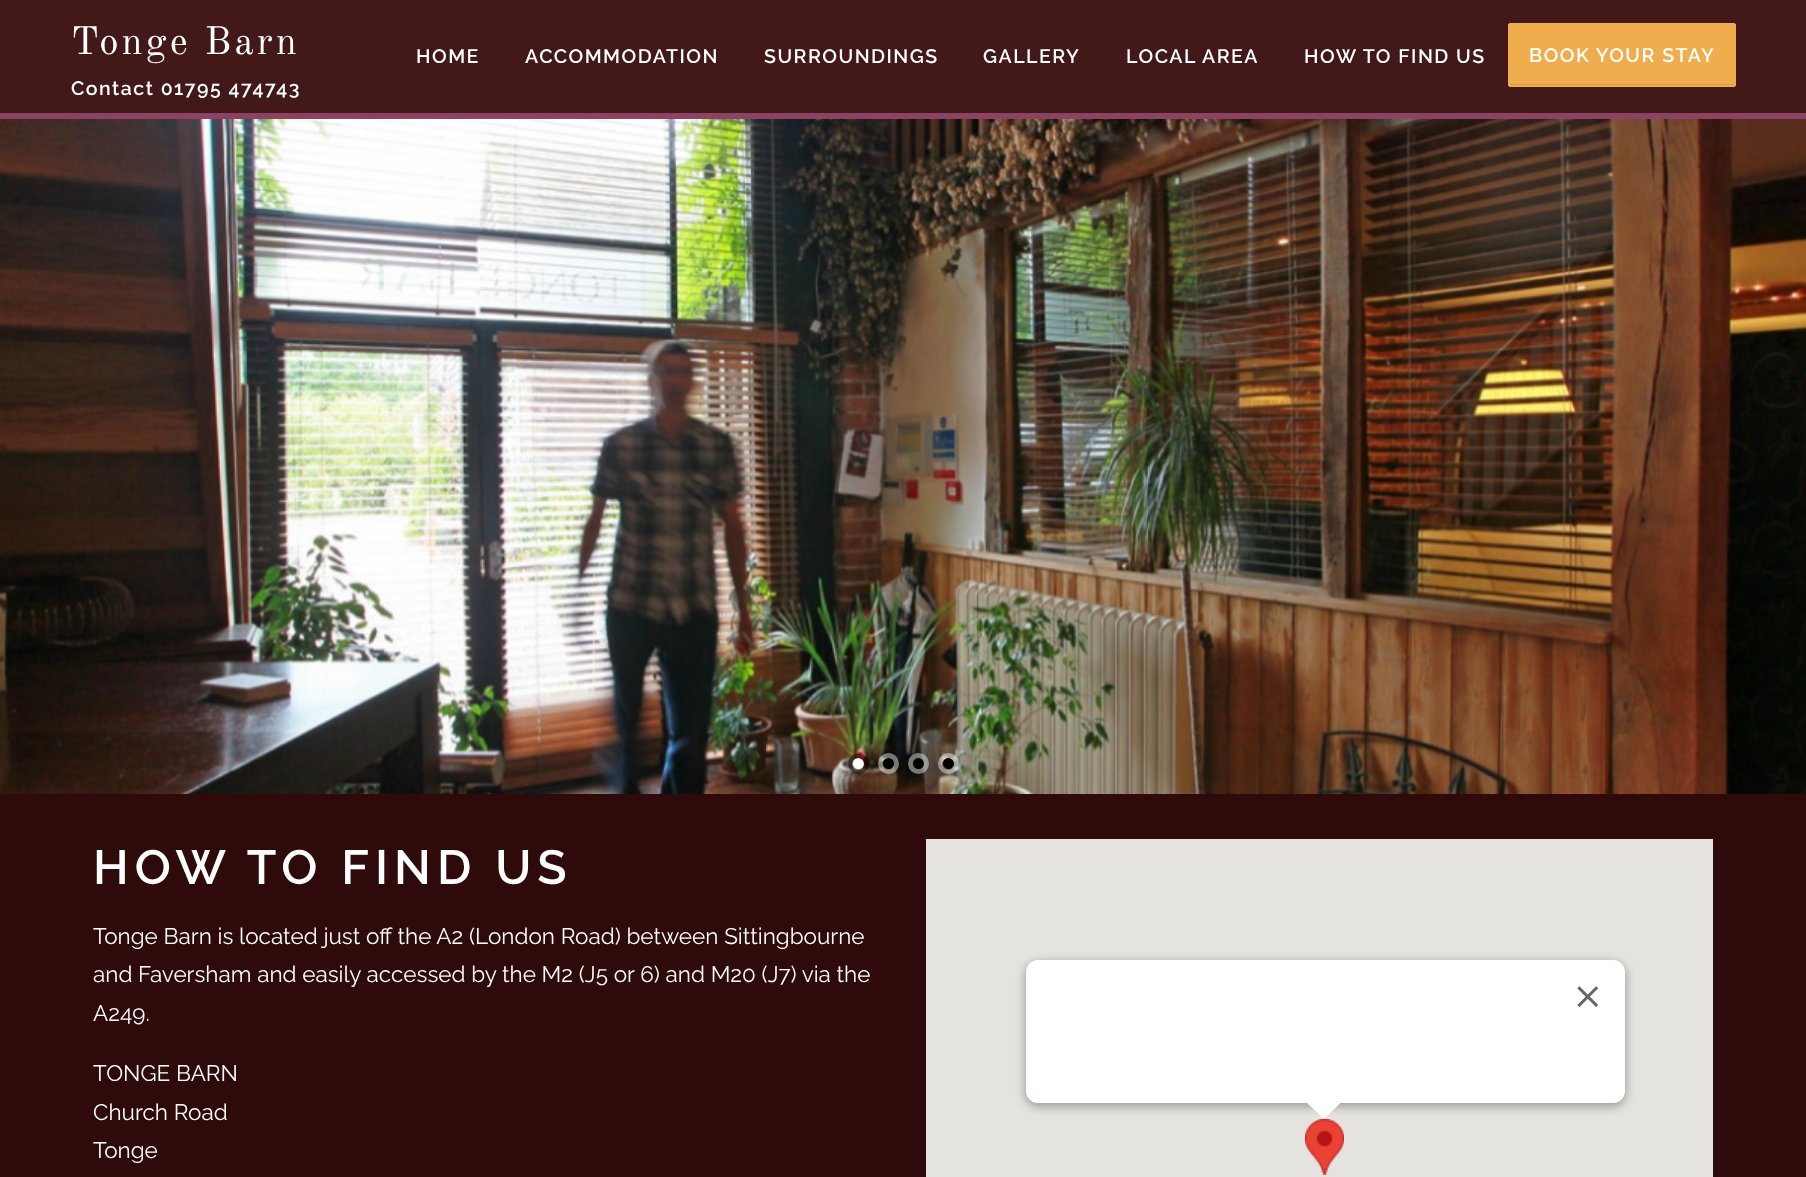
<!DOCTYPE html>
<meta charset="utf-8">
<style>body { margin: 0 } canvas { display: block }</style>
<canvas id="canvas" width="1806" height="1177"></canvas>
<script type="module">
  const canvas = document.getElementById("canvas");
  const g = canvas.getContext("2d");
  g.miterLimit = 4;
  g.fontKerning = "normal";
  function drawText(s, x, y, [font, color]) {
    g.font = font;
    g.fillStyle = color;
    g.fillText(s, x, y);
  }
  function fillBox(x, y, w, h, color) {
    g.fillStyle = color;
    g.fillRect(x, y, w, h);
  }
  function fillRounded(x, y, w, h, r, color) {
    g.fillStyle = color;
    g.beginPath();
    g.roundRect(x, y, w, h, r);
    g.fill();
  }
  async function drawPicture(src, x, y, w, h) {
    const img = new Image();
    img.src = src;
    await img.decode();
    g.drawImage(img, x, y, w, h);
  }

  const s1 = ["39px Old Standard TT", "#FFFFFF"];
  const s2 = ["600 19.5px Raleway", "#FFFFFF"];
  const s3 = ["600 48px Raleway", "#FFFFFF"];
  const s4 = ["22.5px Raleway", "#FFFFFF"];

  fillBox(0, 0, 1806, 1177, "#2E0A0A");
  fillBox(0, 0, 1806, 113, "#421818");
  fillBox(0, 113, 1806, 6, "#8C4263");
  g.letterSpacing = "3px";
  drawText("Tonge Barn", 71, 54, s1);
  g.letterSpacing = "1.5px";
  drawText("Contact 01795 474743", 71, 95, s2);
  drawText("HOME", 416, 63, s2);
  drawText("ACCOMMODATION", 525, 63, s2);
  drawText("SURROUNDINGS", 764, 63, s2);
  drawText("GALLERY", 983, 63, s2);
  drawText("LOCAL AREA", 1126, 63, s2);
  drawText("HOW TO FIND US", 1304, 63, s2);
  fillRounded(1508, 23, 228, 64, 3, "#F0AD4E");
  g.fillStyle = "#D89C46";
  g.beginPath();
  g.moveTo(1509, 82);
  g.bezierCurveTo(1509, 83, 1508, 86, 1510, 86);
  g.lineTo(1732, 86);
  g.bezierCurveTo(1735, 86, 1734, 83, 1734, 82);
  g.bezierCurveTo(1734, 83, 1733, 84, 1732, 84);
  g.lineTo(1510, 84);
  g.closePath();
  g.fill();
  g.beginPath();
  g.roundRect(1509, 24, 226, 62, 2);
  g.strokeStyle = "#F0AD4E";
  g.lineWidth = 2;
  g.stroke();
  drawText("BOOK YOUR STAY", 1529, 62, s2);
  await drawPicture("pic1.png", 0, 119, 1806, 675);
  g.beginPath();
  g.arc(858, 764, 6, 0, Math.PI * 2);
  g.fill();
  g.beginPath();
  g.arc(858.5, 763.5, 8, 0, Math.PI * 2);
  g.strokeStyle = "rgba(0, 0, 0, 0.44)";
  g.lineWidth = 5;
  g.stroke();
  g.fillStyle = "#000000";
  g.beginPath();
  g.arc(888, 764, 6, 0, Math.PI * 2);
  g.fill();
  g.beginPath();
  g.arc(888.5, 763.5, 8, 0, Math.PI * 2);
  g.strokeStyle = "rgba(255, 255, 255, 0.44)";
  g.stroke();
  g.beginPath();
  g.arc(918, 764, 6, 0, Math.PI * 2);
  g.fill();
  g.beginPath();
  g.arc(918.5, 763.5, 8, 0, Math.PI * 2);
  g.stroke();
  g.beginPath();
  g.arc(948, 764, 6, 0, Math.PI * 2);
  g.fill();
  g.beginPath();
  g.arc(948.5, 763.5, 8, 0, Math.PI * 2);
  g.stroke();
  g.letterSpacing = "6px";
  drawText("HOW TO FIND US", 93, 884, s3);
  g.letterSpacing = "0px";
  drawText("Tonge Barn is located just off the A2 (London Road) between Sittingbourne", 93, 944, s4);
  drawText("and Faversham and easily accessed by the M2 (J5 or 6) and M20 (J7) via the", 93, 982, s4);
  drawText("A249.", 93, 1021, s4);
  drawText("TONGE BARN", 93, 1081, s4);
  drawText("Church Road", 93, 1120, s4);
  drawText("Tonge", 93, 1158, s4);
  fillBox(926, 839, 787, 338, "#E5E3DF");
  await drawPicture("pic3.png", 1305, 1119, 39, 56);
  g.fillStyle = "rgba(0, 0, 0, 0.3)";
  g.filter = "blur(5px)";
  g.beginPath();
  g.roundRect(1025, 962, 601, 145, 14);
  g.fill();
  g.filter = "none";
  fillRounded(1026, 960, 599, 143, 12, "#FFFFFF");
  await drawPicture("pic2.png", 1577, 986, 22, 21);
  g.beginPath();
  g.moveTo(1307, 1101);
  g.lineTo(1307, 1103);
  g.lineTo(1324, 1119);
  g.lineTo(1342.5, 1101);
  g.closePath();
  g.fill();
</script>
